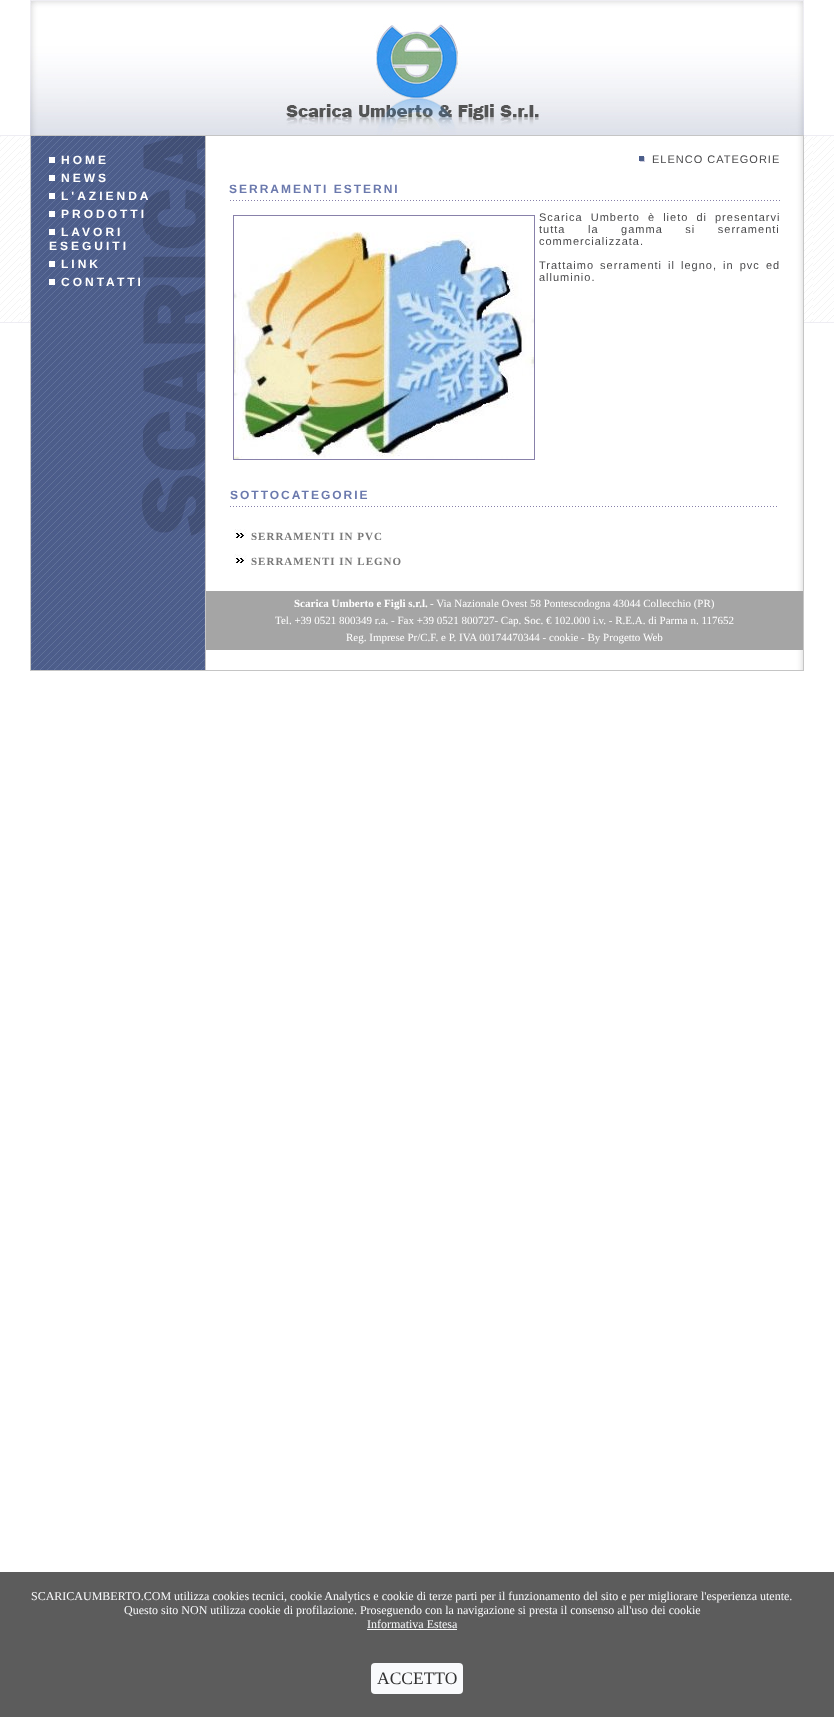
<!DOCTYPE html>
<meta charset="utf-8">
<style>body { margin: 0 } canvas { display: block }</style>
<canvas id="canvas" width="834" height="1717"></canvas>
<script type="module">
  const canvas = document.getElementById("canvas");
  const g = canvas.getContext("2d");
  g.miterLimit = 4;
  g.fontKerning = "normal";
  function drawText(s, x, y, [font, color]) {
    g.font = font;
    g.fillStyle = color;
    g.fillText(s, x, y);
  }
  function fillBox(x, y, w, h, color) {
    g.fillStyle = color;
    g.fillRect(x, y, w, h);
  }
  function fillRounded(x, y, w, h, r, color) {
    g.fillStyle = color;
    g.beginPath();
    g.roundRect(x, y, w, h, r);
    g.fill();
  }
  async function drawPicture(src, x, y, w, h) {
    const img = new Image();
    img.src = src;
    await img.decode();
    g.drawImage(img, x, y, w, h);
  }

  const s1 = ["bold 12px Liberation Sans", "#FFFFFF"];
  const s2 = ["11px Liberation Sans", "#49494B"];
  const s3 = ["bold 12px Liberation Sans", "#6B79AD"];
  const s4 = ["bold 11px Liberation Serif", "#797979"];
  const s5 = ["bold 11px Liberation Serif", "#FFFFFF"];
  const s6 = ["11px Liberation Serif", "#FFFFFF"];
  const s7 = ["12px Liberation Serif", "#F9FAFC"];
  const s8 = ["17.5px Liberation Serif", "#313131"];

  fillBox(0, 0, 834, 1717, "#FFFFFF");
  await drawPicture("pic1.png", 0, 135, 834, 188);
  await drawPicture("pic2.png", 206, 136, 597, 534);
  await drawPicture("pic3.png", 30, 0, 774, 135);
  await drawPicture("pic4.png", 31, 136, 174, 534);
  g.strokeStyle = "#C5C5C5";
  g.strokeRect(30.5, 135.5, 175, 535);
  g.letterSpacing = "3px";
  drawText("HOME", 61, 164, s1);
  fillBox(49, 157, 6, 6, "#FFFFFF");
  drawText("NEWS", 61, 182, s1);
  fillBox(49, 175, 6, 6, "#FFFFFF");
  drawText("L'AZIENDA", 61, 200, s1);
  fillBox(49, 193, 6, 6, "#FFFFFF");
  drawText("PRODOTTI", 61, 218, s1);
  fillBox(49, 211, 6, 6, "#FFFFFF");
  drawText("LAVORI", 61, 236, s1);
  fillBox(49, 229, 6, 6, "#FFFFFF");
  drawText("ESEGUITI", 49, 250, s1);
  drawText("LINK", 61, 268, s1);
  fillBox(49, 261, 6, 6, "#FFFFFF");
  drawText("CONTATTI", 61, 286, s1);
  fillBox(49, 279, 6, 6, "#FFFFFF");
  fillBox(206, 135, 598, 1, "#C5C5C5");
  fillBox(803, 135, 1, 536, "#C5C5C5");
  fillBox(206, 670, 598, 1, "#C5C5C5");
  await drawPicture("pic5.png", 639, 156, 6, 6);
  g.letterSpacing = "1px";
  drawText("ELENCO CATEGORIE", 652, 163, s2);
  await drawPicture("pic6.png", 230, 200, 550, 1);
  g.letterSpacing = "2px";
  drawText("SERRAMENTI ESTERNI", 229, 193, s3);
  g.strokeStyle = "#8881AA";
  g.strokeRect(233.5, 215.5, 301, 244);
  await drawPicture("pic7.png", 234, 231, 300, 228);
  g.letterSpacing = "1px";
  g.wordSpacing = "4px";
  drawText("Scarica Umberto è lieto di presentarvi", 539, 221, s2);
  g.wordSpacing = "18.5px";
  drawText("tutta la gamma si serramenti", 539, 233, s2);
  g.wordSpacing = "0px";
  drawText("commercializzata.", 539, 245, s2);
  g.wordSpacing = "2px";
  drawText("Trattaimo serramenti il legno, in pvc ed", 539, 269, s2);
  g.wordSpacing = "0px";
  drawText("alluminio.", 539, 281, s2);
  await drawPicture("pic8.png", 230, 506, 547, 1);
  g.letterSpacing = "2px";
  drawText("SOTTOCATEGORIE", 230, 499, s3);
  await drawPicture("pic9.png", 234, 529, 13, 10);
  g.letterSpacing = "1px";
  drawText("SERRAMENTI IN PVC", 251, 540, s4);
  await drawPicture("pic9.png", 234, 554, 13, 10);
  drawText("SERRAMENTI IN LEGNO", 251, 565, s4);
  fillBox(206, 591, 597, 59, "#A5A5A5");
  g.letterSpacing = "0px";
  drawText("Scarica Umberto e Figli s.r.l.", 294, 607, s5);
  drawText("- Via Nazionale Ovest 58 Pontescodogna 43044 Collecchio (PR)", 430, 607, s6);
  drawText("Tel. +39 0521 800349 r.a. - Fax +39 0521 800727- Cap. Soc. € 102.000 i.v. - R.E.A. di Parma n. 117652", 275, 624, s6);
  drawText("Reg. Imprese Pr/C.F. e P. IVA 00174470344 - cookie - By Progetto Web", 346, 641, s6);
  fillBox(0, 1572, 834, 145, "#5C5C5C");
  drawText("SCARICAUMBERTO.COM utilizza cookies tecnici, cookie Analytics e cookie di terze parti per il funzionamento del sito e per migliorare l'esperienza utente.", 31, 1600, s7);
  drawText("Questo sito NON utilizza cookie di profilazione. Proseguendo con la navigazione si presta il consenso all'uso dei cookie", 124, 1614, s7);
  drawText("Informativa Estesa", 367, 1628, s7);
  fillBox(367, 1629, 90, 1, "#F9FAFC");
  fillRounded(371, 1663, 92, 31, 4, "#F9FAFC");
  drawText("ACCETTO", 377, 1684, s8);
</script>
